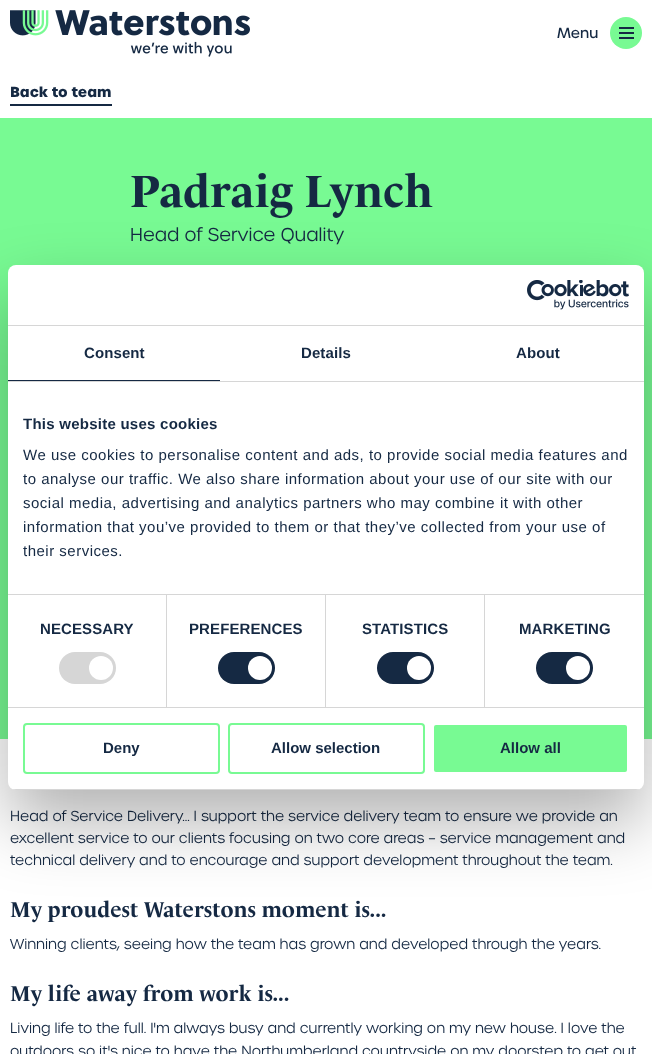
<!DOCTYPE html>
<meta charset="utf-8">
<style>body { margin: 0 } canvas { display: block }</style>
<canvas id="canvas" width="652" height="1054"></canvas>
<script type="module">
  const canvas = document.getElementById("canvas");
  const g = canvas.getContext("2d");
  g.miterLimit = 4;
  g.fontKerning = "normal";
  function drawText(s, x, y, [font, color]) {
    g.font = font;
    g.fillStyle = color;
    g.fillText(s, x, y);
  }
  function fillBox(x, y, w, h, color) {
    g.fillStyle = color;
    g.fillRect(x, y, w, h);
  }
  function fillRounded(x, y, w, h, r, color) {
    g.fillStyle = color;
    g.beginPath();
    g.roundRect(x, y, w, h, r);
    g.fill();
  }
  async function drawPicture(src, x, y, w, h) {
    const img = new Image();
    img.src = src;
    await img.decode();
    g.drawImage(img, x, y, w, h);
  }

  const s1 = ["500 14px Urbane", "#152943"];
  const s2 = ["bold 14px Urbane", "#152943"];
  const s3 = ["bold 46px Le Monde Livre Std", "#152943"];
  const s4 = ["300 18px Urbane", "#152943"];
  const s5 = ["300 14px Urbane", "#152943"];
  const s6 = ["bold 22px Le Monde Livre Std", "#152943"];
  const s7 = ["bold 15px Liberation Sans", "#152943"];
  const s8 = ["15px Liberation Sans", "#152943"];

  fillBox(0, 0, 652, 1054, "#FFFFFF");
  await drawPicture("pic1.png", 10, 10, 240, 47);
  drawText("Menu", 557, 38, s1);
  g.fillStyle = "#78FA93";
  g.beginPath();
  g.arc(626, 33, 16, 0, Math.PI * 2);
  g.fill();
  fillBox(619, 32, 15, 2, "#152943");
  fillBox(619, 27, 15, 2, "#152943");
  fillBox(619, 37, 15, 2, "#152943");
  drawText("Back to team", 10, 97, s2);
  fillBox(10, 104, 102, 2, "#152943");
  fillBox(0, 118, 652, 621, "#78FA93");
  drawText("Padraig Lynch", 130, 207, s3);
  drawText("Head of Service Quality", 130, 241, s4);
  drawText("Head of Service Delivery... I support the service delivery team to ensure we provide an", 10, 821, s5);
  drawText("excellent service to our clients focusing on two core areas – service management and", 10, 843, s5);
  drawText("technical delivery and to encourage and support development throughout the team.", 10, 865, s5);
  drawText("My proudest Waterstons moment is...", 10, 917, s6);
  drawText("Winning clients, seeing how the team has grown and developed through the years.", 10, 949, s5);
  drawText("My life away from work is...", 10, 1001, s6);
  drawText("Living life to the full. I'm always busy and currently working on my new house. I love the", 10, 1033, s5);
  drawText("outdoors so it's nice to have the Northumberland countryside on my doorstep to get out", 10, 1056, s5);
  g.fillStyle = "rgba(0, 0, 0, 0.3)";
  g.filter = "blur(34px)";
  g.beginPath();
  g.roundRect(8, 297, 636, 525, 8);
  g.fill();
  g.filter = "none";
  fillRounded(8, 265, 636, 525, 8, "#FFFFFF");
  fillBox(8, 325, 636, 1, "#D6D6D6");
  await drawPicture("pic2.png", 527, 280, 102, 30);
  fillBox(8, 381, 636, 1, "#D6D6D6");
  fillBox(8, 380, 212, 1, "#152943");
  g.letterSpacing = "0.1px";
  drawText("Consent", 84, 358, s7);
  drawText("Details", 301, 358, s7);
  drawText("About", 516, 358, s7);
  fillBox(8, 594, 636, 1, "#D6D6D6");
  g.letterSpacing = "0.25px";
  drawText("This website uses cookies", 23, 429, s7);
  g.letterSpacing = "0.5px";
  drawText("We use cookies to personalise content and ads, to provide social media features and", 23, 460, s8);
  drawText("to analyse our traffic. We also share information about your use of our site with our", 23, 484, s8);
  drawText("social media, advertising and analytics partners who may combine it with other", 23, 508, s8);
  drawText("information that you’ve provided to them or that they’ve collected from your use of", 23, 532, s8);
  drawText("their services.", 23, 556, s8);
  fillBox(8, 707, 636, 1, "#D6D6D6");
  fillBox(166, 595, 1, 112, "#D6D6D6");
  g.letterSpacing = "0.1px";
  drawText("NECESSARY", 40, 634, s7);
  fillRounded(59, 652, 57, 32, 16, "#D6D6D6");
  g.fillStyle = "#FFFFFF";
  g.beginPath();
  g.arc(101, 668, 12, 0, Math.PI * 2);
  g.fill();
  fillBox(325, 595, 1, 112, "#D6D6D6");
  drawText("PREFERENCES", 189, 634, s7);
  fillRounded(218, 652, 57, 32, 16, "#152943");
  g.fillStyle = "#FFFFFF";
  g.beginPath();
  g.arc(260, 668, 12, 0, Math.PI * 2);
  g.fill();
  fillBox(484, 595, 1, 112, "#D6D6D6");
  drawText("STATISTICS", 362, 634, s7);
  fillRounded(377, 652, 57, 32, 16, "#152943");
  g.fillStyle = "#FFFFFF";
  g.beginPath();
  g.arc(419, 668, 12, 0, Math.PI * 2);
  g.fill();
  drawText("MARKETING", 519, 634, s7);
  fillRounded(536, 652, 57, 32, 16, "#152943");
  g.fillStyle = "#FFFFFF";
  g.beginPath();
  g.arc(578, 668, 12, 0, Math.PI * 2);
  g.fill();
  g.save();
  g.beginPath();
  g.roundRect(8, 265, 636, 525, 8);
  g.clip();
  fillBox(8, 789, 636, 1, "#D6D6D6");
  g.restore();
  g.beginPath();
  g.roundRect(24, 724, 195, 49, 3);
  g.strokeStyle = "#78FA93";
  g.lineWidth = 2;
  g.stroke();
  g.letterSpacing = "0px";
  drawText("Deny", 103, 753, s7);
  g.beginPath();
  g.roundRect(229, 724, 195, 49, 3);
  g.stroke();
  drawText("Allow selection", 271, 753, s7);
  g.fillStyle = "#78FA93";
  g.beginPath();
  g.roundRect(433, 724, 195, 49, 3);
  g.fill();
  g.strokeStyle = "#FFFFFF";
  g.stroke();
  drawText("Allow all", 500, 753, s7);
</script>
